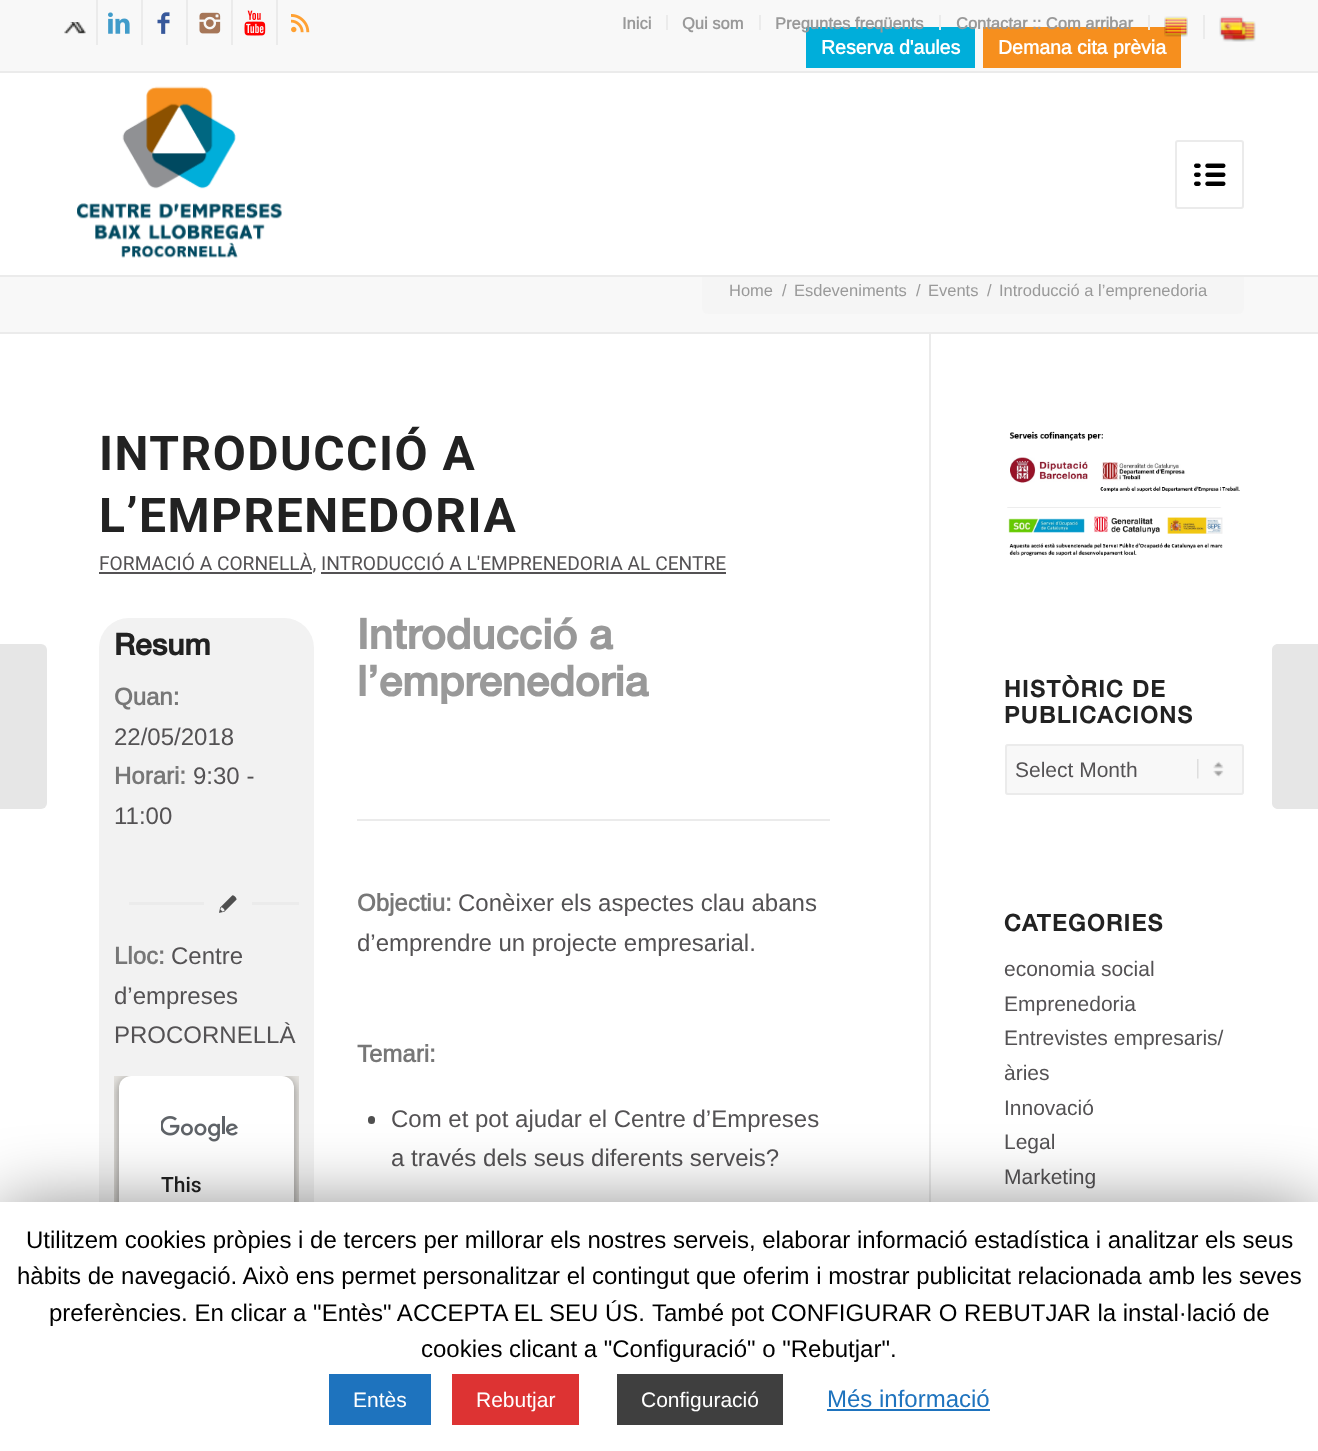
<!DOCTYPE html>
<meta charset="utf-8">
<style>body { margin: 0 } canvas { display: block }</style>
<canvas id="canvas" width="1318" height="1451"></canvas>
<script type="module">
  const canvas = document.getElementById("canvas");
  const g = canvas.getContext("2d");
  g.miterLimit = 4;
  g.fontKerning = "normal";
  function drawText(s, x, y, [font, color]) {
    g.font = font;
    g.fillStyle = color;
    g.fillText(s, x, y);
  }
  function fillBox(x, y, w, h, color) {
    g.fillStyle = color;
    g.fillRect(x, y, w, h);
  }
  function fillRounded(x, y, w, h, r, color) {
    g.fillStyle = color;
    g.beginPath();
    g.roundRect(x, y, w, h, r);
    g.fill();
  }
  async function drawPicture(src, x, y, w, h) {
    const img = new Image();
    img.src = src;
    await img.decode();
    g.drawImage(img, x, y, w, h);
  }

  const s1 = ["bold 16.5px Arimo", "#999999"];
  const s2 = ["bold 19.5px Arimo", "#FFFFFF"];
  const s3 = ["16.5px Arimo", "#999999"];
  const s4 = ["bold 48px Roboto", "#222222"];
  const s5 = ["19.2px Roboto", "#545254"];
  const s6 = ["bold 30px Helvetica Neue", "#222222"];
  const s7 = ["bold 24px Arimo", "#777777"];
  const s8 = ["24px Arimo", "#545254"];
  const s9 = ["500 21px Roboto", "#222222"];
  const s10 = ["bold 42px Helvetica Neue", "#999999"];
  const s11 = ["bold 23px Helvetica Neue", "#222222"];
  const s12 = ["21px Liberation Sans", "#545254"];
  const s13 = ["21px Arimo", "#545254"];
  const s14 = ["24px Arimo", "#000000"];
  const s15 = ["21px Arimo", "#FFFFFF"];
  const s16 = ["24px Arimo", "#1E73BE"];

  fillBox(0, 0, 1318, 1451, "#FFFFFF");
  fillBox(0, 0, 1318, 71, "#F8F8F8");
  fillBox(0, 71, 1318, 2, "#EBEBEB");
  fillBox(96, 0, 2, 45, "#EBEBEB");
  await drawPicture("pic1.png", 64, 22, 22, 12);
  fillBox(141, 0, 2, 45, "#EBEBEB");
  await drawPicture("pic2.png", 108, 12, 22, 22);
  fillBox(186, 0, 2, 45, "#EBEBEB");
  await drawPicture("pic3.png", 157, 12, 13, 22);
  fillBox(231, 0, 2, 45, "#EBEBEB");
  await drawPicture("pic4.png", 199, 12, 22, 22);
  fillBox(276, 0, 2, 45, "#EBEBEB");
  await drawPicture("pic5.png", 244, 10, 22, 26);
  await drawPicture("pic6.png", 291, 14, 19, 19);
  fillBox(666, 15, 2, 15, "#EBEBEB");
  drawText("Inici", 622, 29, s1);
  fillBox(759, 15, 2, 15, "#EBEBEB");
  drawText("Qui som", 682, 29, s1);
  fillBox(806, 27, 169, 41, "#00AEDA");
  fillBox(939, 15, 2, 15, "#EBEBEB");
  drawText("Preguntes freqüents", 775, 29, s1);
  fillBox(983, 27, 198, 41, "#F68F1E");
  fillBox(1148, 15, 2, 15, "#EBEBEB");
  drawText("Contactar :: Com arribar", 956, 29, s1);
  fillBox(1203, 15, 2, 24, "#EBEBEB");
  await drawPicture("pic7.png", 1164, 16, 24, 21);
  await drawPicture("pic10.png", 1231, 21, 25, 21);
  await drawPicture("pic9.png", 1222, 21, 25, 21);
  await drawPicture("pic8.png", 1219, 16, 25, 21);
  drawText("Reserva d'aules", 821, 54, s2);
  drawText("Demana cita prèvia", 998, 54, s2);
  fillBox(0, 277, 1318, 55, "#F8F8F8");
  fillRounded(702, 267, 542, 47, 6, "#F5F5F5");
  fillBox(0, 275, 1318, 2, "#EBEBEB");
  await drawPicture("pic11.png", 77, 86, 205, 172);
  g.beginPath();
  g.roundRect(1176, 141, 67, 67, 2);
  g.strokeStyle = "#EBEBEB";
  g.lineWidth = 2;
  g.stroke();
  await drawPicture("pic12.png", 1194, 163, 32, 23);
  fillBox(702, 267, 542, 8, "#FFFFFF");
  g.fillStyle = "#E6E6E6";
  g.beginPath();
  g.roundRect(0, 644, 47, 165, [0, 6, 6, 0]);
  g.fill();
  drawText("Home", 729, 296, s3);
  drawText("/", 782, 296, s3);
  drawText("Esdeveniments", 794, 296, s3);
  drawText("/", 916, 296, s3);
  drawText("Events", 928, 296, s3);
  drawText("/", 987, 296, s3);
  drawText("Introducció a l’emprenedoria", 999, 296, s3);
  fillBox(0, 332, 1318, 2, "#EBEBEB");
  fillBox(929, 333, 2, 869, "#EBEBEB");
  g.letterSpacing = "1.5px";
  drawText("INTRODUCCIÓ A", 99, 470, s4);
  drawText("L’EMPRENEDORIA", 99, 532, s4);
  fillBox(99, 572, 213, 2, "#545254");
  g.letterSpacing = "0px";
  drawText("FORMACIÓ A CORNELLÀ, INTRODUCCIÓ A L'EMPRENEDORIA AL CENTRE", 99, 570, s5);
  fillBox(321, 572, 405, 2, "#545254");
  fillRounded(99, 618, 215, 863, 30, "#F2F2F2");
  drawText("Resum", 114, 655, s6);
  drawText("Quan:", 114, 705, s7);
  drawText("22/05/2018", 114, 745, s8);
  drawText("Horari:", 114, 784, s7);
  drawText("9:30 -", 193, 784, s8);
  drawText("11:00", 114, 824, s8);
  fillBox(129, 902, 75, 3, "#EBEBEB");
  await drawPicture("pic13.png", 219, 895, 18, 18);
  fillBox(252, 902, 47, 3, "#EBEBEB");
  drawText("Lloc:", 114, 964, s7);
  drawText("Centre", 171, 964, s8);
  drawText("d’empreses", 114, 1004, s8);
  drawText("PROCORNELLÀ", 114, 1043, s8);
  fillBox(114, 1076, 185, 126, "#E5E3DF");
  g.save();
  g.beginPath();
  g.rect(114, 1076, 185, 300);
  g.clip();
  g.fillStyle = "rgba(0, 0, 0, 0.3)";
  g.filter = "blur(5px)";
  g.beginPath();
  g.roundRect(117, 1077, 179, 231, 14);
  g.fill();
  g.filter = "none";
  g.restore();
  fillRounded(119, 1076, 175, 228, 12, "#FFFFFF");
  g.beginPath();
  g.roundRect(122, 1083, 169, 293, [8, 8, 0, 0]);
  g.fill();
  await drawPicture("pic14.png", 161, 1116, 77, 26);
  drawText("This", 161, 1192, s9);
  drawText("Introducció a", 357, 649, s10);
  drawText("l’emprenedoria", 357, 696, s10);
  fillBox(357, 819, 473, 2, "#EBEBEB");
  drawText("Objectiu:", 357, 911, s7);
  drawText("Conèixer els aspectes clau abans", 458, 911, s8);
  drawText("d’emprendre un projecte empresarial.", 357, 951, s8);
  drawText("Temari:", 357, 1062, s7);
  fillRounded(368, 1116, 7, 8, 3.5, "#4F4F4F");
  drawText("Com et pot ajudar el Centre d’Empreses", 391, 1127, s8);
  drawText("a través dels seus diferents serveis?", 391, 1166, s8);
  await drawPicture("pic15.png", 1007, 431, 233, 125);
  g.letterSpacing = "1.5px";
  drawText("HISTÒRIC DE", 1004, 697, s11);
  drawText("PUBLICACIONS", 1004, 723, s11);
  fillRounded(1005, 744, 239, 51, 3, "#F8F8F8");
  await drawPicture("pic16.png", 1197, 759, 27, 20);
  g.beginPath();
  g.roundRect(1006, 745, 237, 49, 2);
  g.stroke();
  g.letterSpacing = "0px";
  drawText("Select Month", 1015, 777, s12);
  g.letterSpacing = "1.5px";
  drawText("CATEGORIES", 1004, 931, s11);
  g.letterSpacing = "0px";
  drawText("economia social", 1004, 976, s13);
  drawText("Emprenedoria", 1004, 1011, s13);
  drawText("Entrevistes empresaris/", 1004, 1045, s13);
  drawText("àries", 1004, 1080, s13);
  drawText("Innovació", 1004, 1115, s13);
  drawText("Legal", 1004, 1149, s13);
  drawText("Marketing", 1004, 1184, s13);
  g.fillStyle = "#E6E6E6";
  g.beginPath();
  g.moveTo(1278, 644);
  g.lineTo(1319, 644);
  g.lineTo(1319, 809);
  g.lineTo(1278, 809);
  g.bezierCurveTo(1274.5, 809, 1272, 806.5, 1272, 803);
  g.lineTo(1272, 650);
  g.bezierCurveTo(1272, 646.5, 1274.5, 644, 1278, 644);
  g.closePath();
  g.fill();
  g.fillStyle = "rgba(0, 0, 0, 0.5)";
  g.filter = "blur(37.5px)";
  g.beginPath();
  g.rect(0, 1209, 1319, 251);
  g.fill();
  g.filter = "none";
  fillBox(0, 1202, 1318, 249, "#FFFFFF");
  drawText("Utilitzem cookies pròpies i de tercers per millorar els nostres serveis, elaborar informació estadística i analitzar els seus", 26, 1248, s14);
  drawText("hàbits de navegació. Això ens permet personalitzar el contingut que oferim i mostrar publicitat relacionada amb les seves", 17, 1284, s14);
  drawText("preferències. En clicar a \"Entès\" ACCEPTA EL SEU ÚS.", 49, 1321, s14);
  drawText("També pot CONFIGURAR O REBUTJAR la instal·lació de", 652, 1321, s14);
  drawText("cookies clicant a \"Configuració\" o \"Rebutjar\".", 421, 1357, s14);
  fillBox(329, 1374, 102, 51, "#1E73BE");
  drawText("Entès", 353, 1407, s15);
  fillBox(452, 1374, 127, 51, "#DD3333");
  drawText("Rebutjar", 476, 1407, s15);
  fillBox(617, 1374, 166, 51, "#3F3F3F");
  drawText("Configuració", 641, 1407, s15);
  drawText("Més informació", 827, 1407, s16);
  fillBox(827, 1409, 163, 2, "#1E73BE");
</script>
